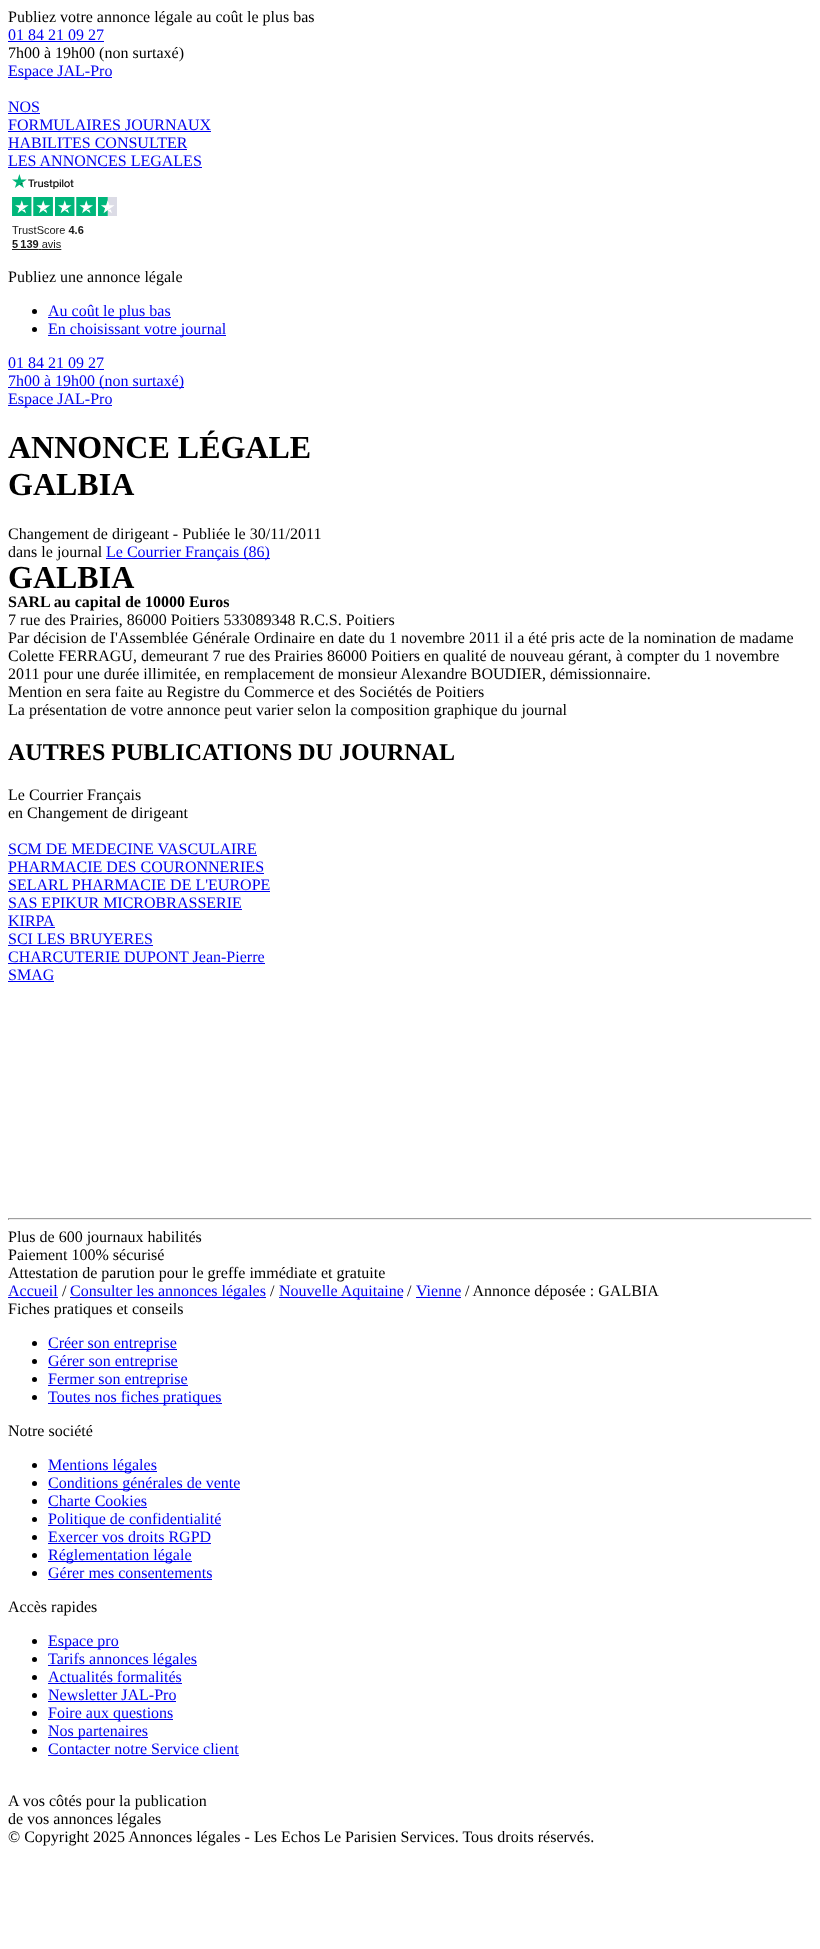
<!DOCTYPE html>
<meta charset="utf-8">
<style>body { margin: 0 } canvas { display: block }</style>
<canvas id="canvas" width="820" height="1949"></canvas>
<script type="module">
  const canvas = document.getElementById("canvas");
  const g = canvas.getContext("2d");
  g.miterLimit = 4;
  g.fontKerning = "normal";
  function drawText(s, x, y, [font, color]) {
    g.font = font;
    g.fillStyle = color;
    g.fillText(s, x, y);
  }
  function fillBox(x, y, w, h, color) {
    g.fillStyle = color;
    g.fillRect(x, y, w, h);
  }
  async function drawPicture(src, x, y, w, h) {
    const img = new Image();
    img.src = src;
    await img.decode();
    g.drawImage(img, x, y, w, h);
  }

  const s1 = ["16px Liberation Serif", "#000000"];
  const s2 = ["16px Liberation Serif", "#0000EE"];
  const s3 = ["bold 32px Liberation Serif", "#000000"];
  const s4 = ["bold 16px Liberation Serif", "#000000"];
  const s5 = ["bold 24px Liberation Serif", "#000000"];

  fillBox(0, 0, 820, 1949, "#FFFFFF");
  drawText("Publiez votre annonce légale au coût le plus bas", 8, 22, s1);
  drawText("01 84 21 09 27", 8, 40, s2);
  fillBox(8, 41, 96, 1, "#0000EE");
  drawText("7h00 à 19h00 (non surtaxé)", 8, 58, s1);
  fillBox(8, 77, 104, 1, "#0000EE");
  drawText("Espace JAL-Pro", 8, 76, s2);
  drawText("NOS", 8, 112, s2);
  fillBox(8, 113, 32, 1, "#0000EE");
  drawText("FORMULAIRES JOURNAUX", 8, 130, s2);
  fillBox(8, 131, 203, 1, "#0000EE");
  drawText("HABILITES CONSULTER", 8, 148, s2);
  fillBox(8, 149, 179, 1, "#0000EE");
  drawText("LES ANNONCES LEGALES", 8, 166, s2);
  fillBox(8, 167, 194, 1, "#0000EE");
  await drawPicture("pic1.png", 12, 174, 105, 76);
  drawText("Publiez une annonce légale", 8, 282, s1);
  g.beginPath();
  g.arc(34.5, 311.5, 2.5, 0, Math.PI * 2);
  g.fill();
  fillBox(48, 317, 123, 1, "#0000EE");
  drawText("Au coût le plus bas", 48, 316, s2);
  g.fillStyle = "#000000";
  g.beginPath();
  g.arc(34.5, 329.5, 2.5, 0, Math.PI * 2);
  g.fill();
  fillBox(48, 335, 178, 1, "#0000EE");
  drawText("En choisissant votre journal", 48, 334, s2);
  drawText("01 84 21 09 27", 8, 368, s2);
  fillBox(8, 369, 96, 1, "#0000EE");
  fillBox(8, 387, 176, 1, "#0000EE");
  drawText("7h00 à 19h00 (non surtaxé)", 8, 386, s2);
  fillBox(8, 405, 104, 1, "#0000EE");
  drawText("Espace JAL-Pro", 8, 404, s2);
  drawText("ANNONCE LÉGALE", 8, 458, s3);
  drawText("GALBIA", 8, 495, s3);
  drawText("Changement de dirigeant - Publiée le 30/11/2011", 8, 539, s1);
  drawText("dans le journal", 8, 557, s1);
  fillBox(106, 558, 164, 1, "#0000EE");
  drawText("Le Courrier Français (86)", 106, 557, s2);
  drawText("GALBIA", 8, 588, s3);
  drawText("SARL au capital de 10000 Euros", 8, 607, s4);
  drawText("7 rue des Prairies, 86000 Poitiers 533089348 R.C.S. Poitiers", 8, 625, s1);
  drawText("Par décision de I'Assemblée Générale Ordinaire en date du 1 novembre 2011 il a été pris acte de la nomination de madame", 8, 643, s1);
  drawText("Colette FERRAGU, demeurant 7 rue des Prairies 86000 Poitiers en qualité de nouveau gérant, à compter du 1 novembre", 8, 661, s1);
  drawText("2011 pour une durée illimitée, en remplacement de monsieur Alexandre BOUDIER, démissionnaire.", 8, 679, s1);
  drawText("Mention en sera faite au Registre du Commerce et des Sociétés de Poitiers", 8, 697, s1);
  drawText("La présentation de votre annonce peut varier selon la composition graphique du journal", 8, 715, s1);
  drawText("AUTRES PUBLICATIONS DU JOURNAL", 8, 760, s5);
  drawText("Le Courrier Français", 8, 800, s1);
  drawText("en Changement de dirigeant", 8, 818, s1);
  drawText("SCM DE MEDECINE VASCULAIRE", 8, 854, s2);
  fillBox(8, 855, 249, 1, "#0000EE");
  drawText("PHARMACIE DES COURONNERIES", 8, 872, s2);
  fillBox(8, 873, 256, 1, "#0000EE");
  drawText("SELARL PHARMACIE DE L'EUROPE", 8, 890, s2);
  fillBox(8, 891, 262, 1, "#0000EE");
  drawText("SAS EPIKUR MICROBRASSERIE", 8, 908, s2);
  fillBox(8, 909, 234, 1, "#0000EE");
  drawText("KIRPA", 8, 926, s2);
  fillBox(8, 927, 47, 1, "#0000EE");
  drawText("SCI LES BRUYERES", 8, 944, s2);
  fillBox(8, 945, 145, 1, "#0000EE");
  drawText("CHARCUTERIE DUPONT Jean-Pierre", 8, 962, s2);
  fillBox(8, 963, 257, 1, "#0000EE");
  drawText("SMAG", 8, 980, s2);
  fillBox(8, 981, 46, 1, "#0000EE");
  fillBox(8, 1218, 804, 1, "#9F9F9F");
  fillBox(811, 1218, 1, 2, "#EEEEEE");
  fillBox(8, 1219, 804, 1, "#EEEEEE");
  fillBox(8, 1218, 1, 2, "#9F9F9F");
  drawText("Plus de 600 journaux habilités", 8, 1242, s1);
  drawText("Paiement 100% sécurisé", 8, 1260, s1);
  drawText("Attestation de parution pour le greffe immédiate et gratuite", 8, 1278, s1);
  drawText("Accueil", 8, 1296, s2);
  fillBox(8, 1297, 50, 1, "#0000EE");
  drawText("/", 62, 1296, s1);
  fillBox(70, 1297, 196, 1, "#0000EE");
  drawText("Consulter les annonces légales", 70, 1296, s2);
  drawText("/", 270, 1296, s1);
  fillBox(279, 1297, 124, 1, "#0000EE");
  drawText("Nouvelle Aquitaine", 279, 1296, s2);
  drawText("/", 407, 1296, s1);
  drawText("Vienne", 416, 1296, s2);
  fillBox(416, 1297, 45, 1, "#0000EE");
  drawText("/ Annonce déposée : GALBIA", 465, 1296, s1);
  drawText("Fiches pratiques et conseils", 8, 1314, s1);
  g.beginPath();
  g.arc(34.5, 1343.5, 2.5, 0, Math.PI * 2);
  g.fill();
  fillBox(48, 1349, 129, 1, "#0000EE");
  drawText("Créer son entreprise", 48, 1348, s2);
  g.fillStyle = "#000000";
  g.beginPath();
  g.arc(34.5, 1361.5, 2.5, 0, Math.PI * 2);
  g.fill();
  fillBox(48, 1367, 130, 1, "#0000EE");
  drawText("Gérer son entreprise", 48, 1366, s2);
  g.fillStyle = "#000000";
  g.beginPath();
  g.arc(34.5, 1379.5, 2.5, 0, Math.PI * 2);
  g.fill();
  fillBox(48, 1385, 140, 1, "#0000EE");
  drawText("Fermer son entreprise", 48, 1384, s2);
  g.fillStyle = "#000000";
  g.beginPath();
  g.arc(34.5, 1397.5, 2.5, 0, Math.PI * 2);
  g.fill();
  fillBox(48, 1403, 174, 1, "#0000EE");
  drawText("Toutes nos fiches pratiques", 48, 1402, s2);
  drawText("Notre société", 8, 1436, s1);
  g.beginPath();
  g.arc(34.5, 1465.5, 2.5, 0, Math.PI * 2);
  g.fill();
  fillBox(48, 1471, 109, 1, "#0000EE");
  drawText("Mentions légales", 48, 1470, s2);
  g.fillStyle = "#000000";
  g.beginPath();
  g.arc(34.5, 1483.5, 2.5, 0, Math.PI * 2);
  g.fill();
  fillBox(48, 1489, 192, 1, "#0000EE");
  drawText("Conditions générales de vente", 48, 1488, s2);
  g.fillStyle = "#000000";
  g.beginPath();
  g.arc(34.5, 1501.5, 2.5, 0, Math.PI * 2);
  g.fill();
  drawText("Charte Cookies", 48, 1506, s2);
  fillBox(48, 1507, 99, 1, "#0000EE");
  g.fillStyle = "#000000";
  g.beginPath();
  g.arc(34.5, 1519.5, 2.5, 0, Math.PI * 2);
  g.fill();
  fillBox(48, 1525, 173, 1, "#0000EE");
  drawText("Politique de confidentialité", 48, 1524, s2);
  g.fillStyle = "#000000";
  g.beginPath();
  g.arc(34.5, 1537.5, 2.5, 0, Math.PI * 2);
  g.fill();
  drawText("Exercer vos droits RGPD", 48, 1542, s2);
  fillBox(48, 1543, 163, 1, "#0000EE");
  g.fillStyle = "#000000";
  g.beginPath();
  g.arc(34.5, 1555.5, 2.5, 0, Math.PI * 2);
  g.fill();
  fillBox(48, 1561, 144, 1, "#0000EE");
  drawText("Réglementation légale", 48, 1560, s2);
  g.fillStyle = "#000000";
  g.beginPath();
  g.arc(34.5, 1573.5, 2.5, 0, Math.PI * 2);
  g.fill();
  drawText("Gérer mes consentements", 48, 1578, s2);
  fillBox(48, 1579, 164, 1, "#0000EE");
  drawText("Accès rapides", 8, 1612, s1);
  g.beginPath();
  g.arc(34.5, 1641.5, 2.5, 0, Math.PI * 2);
  g.fill();
  fillBox(48, 1647, 71, 1, "#0000EE");
  drawText("Espace pro", 48, 1646, s2);
  g.fillStyle = "#000000";
  g.beginPath();
  g.arc(34.5, 1659.5, 2.5, 0, Math.PI * 2);
  g.fill();
  fillBox(48, 1665, 149, 1, "#0000EE");
  drawText("Tarifs annonces légales", 48, 1664, s2);
  g.fillStyle = "#000000";
  g.beginPath();
  g.arc(34.5, 1677.5, 2.5, 0, Math.PI * 2);
  g.fill();
  drawText("Actualités formalités", 48, 1682, s2);
  fillBox(48, 1683, 134, 1, "#0000EE");
  g.fillStyle = "#000000";
  g.beginPath();
  g.arc(34.5, 1695.5, 2.5, 0, Math.PI * 2);
  g.fill();
  drawText("Newsletter JAL-Pro", 48, 1700, s2);
  fillBox(48, 1701, 128, 1, "#0000EE");
  g.fillStyle = "#000000";
  g.beginPath();
  g.arc(34.5, 1713.5, 2.5, 0, Math.PI * 2);
  g.fill();
  fillBox(48, 1719, 125, 1, "#0000EE");
  drawText("Foire aux questions", 48, 1718, s2);
  g.fillStyle = "#000000";
  g.beginPath();
  g.arc(34.5, 1731.5, 2.5, 0, Math.PI * 2);
  g.fill();
  fillBox(48, 1737, 100, 1, "#0000EE");
  drawText("Nos partenaires", 48, 1736, s2);
  g.fillStyle = "#000000";
  g.beginPath();
  g.arc(34.5, 1749.5, 2.5, 0, Math.PI * 2);
  g.fill();
  drawText("Contacter notre Service client", 48, 1754, s2);
  fillBox(48, 1755, 191, 1, "#0000EE");
  drawText("A vos côtés pour la publication", 8, 1806, s1);
  drawText("de vos annonces légales", 8, 1824, s1);
  drawText("© Copyright 2025 Annonces légales - Les Echos Le Parisien Services. Tous droits réservés.", 8, 1842, s1);
</script>
